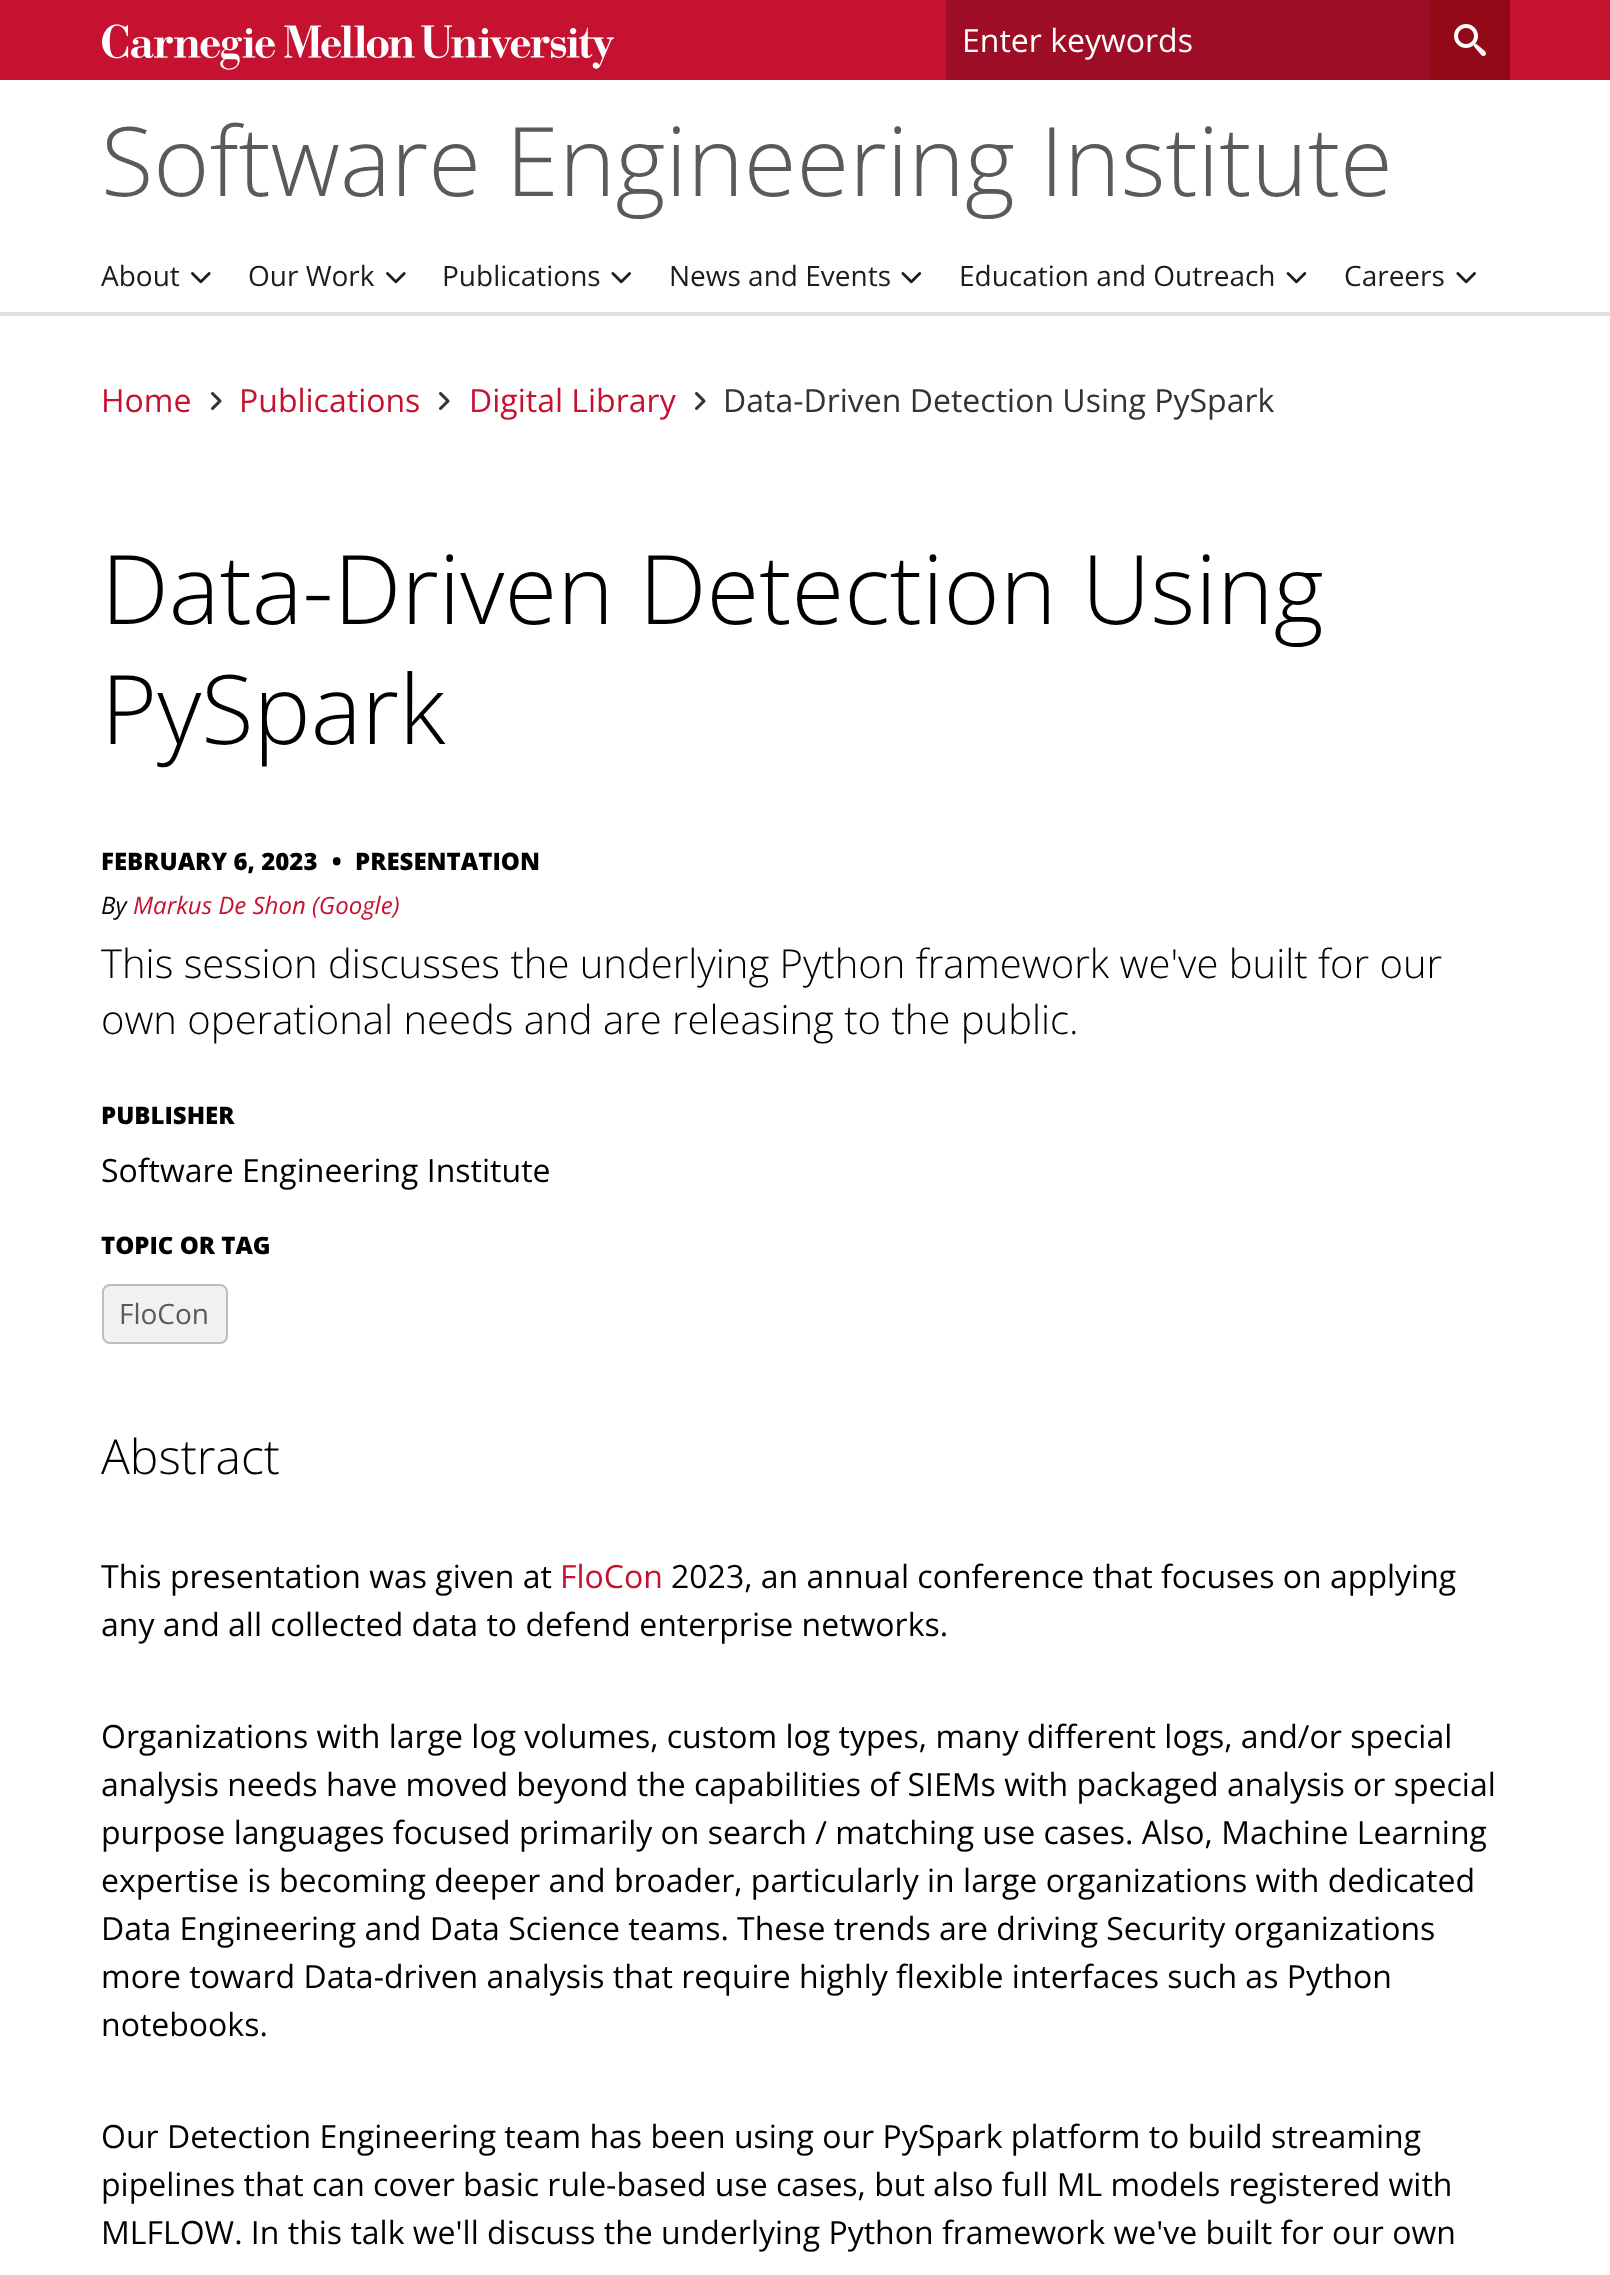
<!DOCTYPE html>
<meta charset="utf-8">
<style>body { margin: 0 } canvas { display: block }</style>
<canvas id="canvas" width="1610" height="2275"></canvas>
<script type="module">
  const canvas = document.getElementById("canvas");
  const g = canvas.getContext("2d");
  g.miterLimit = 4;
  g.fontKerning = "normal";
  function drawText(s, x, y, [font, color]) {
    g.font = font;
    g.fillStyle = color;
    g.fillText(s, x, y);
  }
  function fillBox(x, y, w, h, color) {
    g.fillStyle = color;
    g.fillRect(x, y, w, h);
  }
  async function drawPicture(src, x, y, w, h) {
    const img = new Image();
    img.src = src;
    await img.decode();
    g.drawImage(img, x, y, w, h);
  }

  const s1 = ["32px Open Sans", "#FFFFFF"];
  const s2 = ["300 96px Open Sans", "#595A5C"];
  const s3 = ["28px Open Sans", "#1B1C1D"];
  const s4 = ["32px Open Sans", "#C41230"];
  const s5 = ["32px Open Sans", "#333333"];
  const s6 = ["300 96px Open Sans", "#000000"];
  const s7 = ["800 24px Open Sans", "#000000"];
  const s8 = ["italic 24px Open Sans", "#000000"];
  const s9 = ["italic 24px Open Sans", "#C41230"];
  const s10 = ["300 40px Open Sans", "#000000"];
  const s11 = ["32px Open Sans", "#000000"];
  const s12 = ["28px Open Sans", "#595A5C"];
  const s13 = ["300 48px Open Sans", "#000000"];

  fillBox(0, 0, 1610, 2275, "#FFFFFF");
  fillBox(0, 0, 1610, 80, "#C41230");
  await drawPicture("pic1.png", 102, 24, 512, 46);
  fillBox(946, 0, 484, 80, "#9D0E26");
  drawText("Enter keywords", 962, 52, s1);
  fillBox(1430, 0, 80, 80, "#920918");
  await drawPicture("pic2.png", 1454, 24, 32, 32);
  drawText("Software Engineering Institute", 101, 196, s2);
  fillBox(0, 312, 1610, 4, "#E1E2E3");
  drawText("About", 101, 286, s3);
  await drawPicture("pic3.png", 191, 272, 20, 12);
  drawText("Our Work", 248, 286, s3);
  await drawPicture("pic4.png", 386, 272, 20, 12);
  drawText("Publications", 442, 286, s3);
  await drawPicture("pic5.png", 611, 272, 20, 12);
  drawText("News and Events", 669, 286, s3);
  await drawPicture("pic6.png", 901, 272, 21, 12);
  drawText("Education and Outreach", 959, 286, s3);
  await drawPicture("pic7.png", 1286, 272, 21, 12);
  drawText("Careers", 1344, 286, s3);
  await drawPicture("pic8.png", 1456, 272, 20, 12);
  drawText("Home", 101, 412, s4);
  await drawPicture("pic9.png", 211, 392, 11, 18);
  drawText("Publications", 239, 412, s4);
  await drawPicture("pic9.png", 439, 392, 11, 18);
  drawText("Digital Library", 469, 412, s4);
  await drawPicture("pic9.png", 695, 392, 11, 18);
  drawText("Data-Driven Detection Using PySpark", 723, 412, s5);
  drawText("Data-Driven Detection Using", 101, 624, s6);
  drawText("PySpark", 101, 744, s6);
  drawText("FEBRUARY 6, 2023", 101, 870, s7);
  drawText("•", 332, 870, s7);
  drawText("PRESENTATION", 355, 870, s7);
  drawText("By", 101, 914, s8);
  drawText("Markus De Shon (Google)", 133, 914, s9);
  drawText("This session discusses the underlying Python framework we've built for our", 101, 978, s10);
  drawText("own operational needs and are releasing to the public.", 101, 1034, s10);
  drawText("PUBLISHER", 101, 1124, s7);
  drawText("Software Engineering Institute", 101, 1182, s11);
  drawText("TOPIC OR TAG", 101, 1254, s7);
  g.fillStyle = "#F0F1F1";
  g.beginPath();
  g.roundRect(103, 1285, 124, 58, 7);
  g.fill();
  g.strokeStyle = "#BCBEC0";
  g.lineWidth = 2;
  g.stroke();
  drawText("FloCon", 119, 1324, s12);
  drawText("Abstract", 101, 1474, s13);
  drawText("This presentation was given at", 101, 1588, s11);
  drawText("FloCon", 560, 1588, s4);
  drawText("2023, an annual conference that focuses on applying", 671, 1588, s11);
  drawText("any and all collected data to defend enterprise networks.", 101, 1636, s11);
  drawText("Organizations with large log volumes, custom log types, many different logs, and/or special", 101, 1748, s11);
  drawText("analysis needs have moved beyond the capabilities of SIEMs with packaged analysis or special", 101, 1796, s11);
  drawText("purpose languages focused primarily on search / matching use cases. Also, Machine Learning", 101, 1844, s11);
  drawText("expertise is becoming deeper and broader, particularly in large organizations with dedicated", 101, 1892, s11);
  drawText("Data Engineering and Data Science teams. These trends are driving Security organizations", 101, 1940, s11);
  drawText("more toward Data-driven analysis that require highly flexible interfaces such as Python", 101, 1988, s11);
  drawText("notebooks.", 101, 2036, s11);
  drawText("Our Detection Engineering team has been using our PySpark platform to build streaming", 101, 2148, s11);
  drawText("pipelines that can cover basic rule-based use cases, but also full ML models registered with", 101, 2196, s11);
  drawText("MLFLOW. In this talk we'll discuss the underlying Python framework we've built for our own", 101, 2244, s11);
</script>
